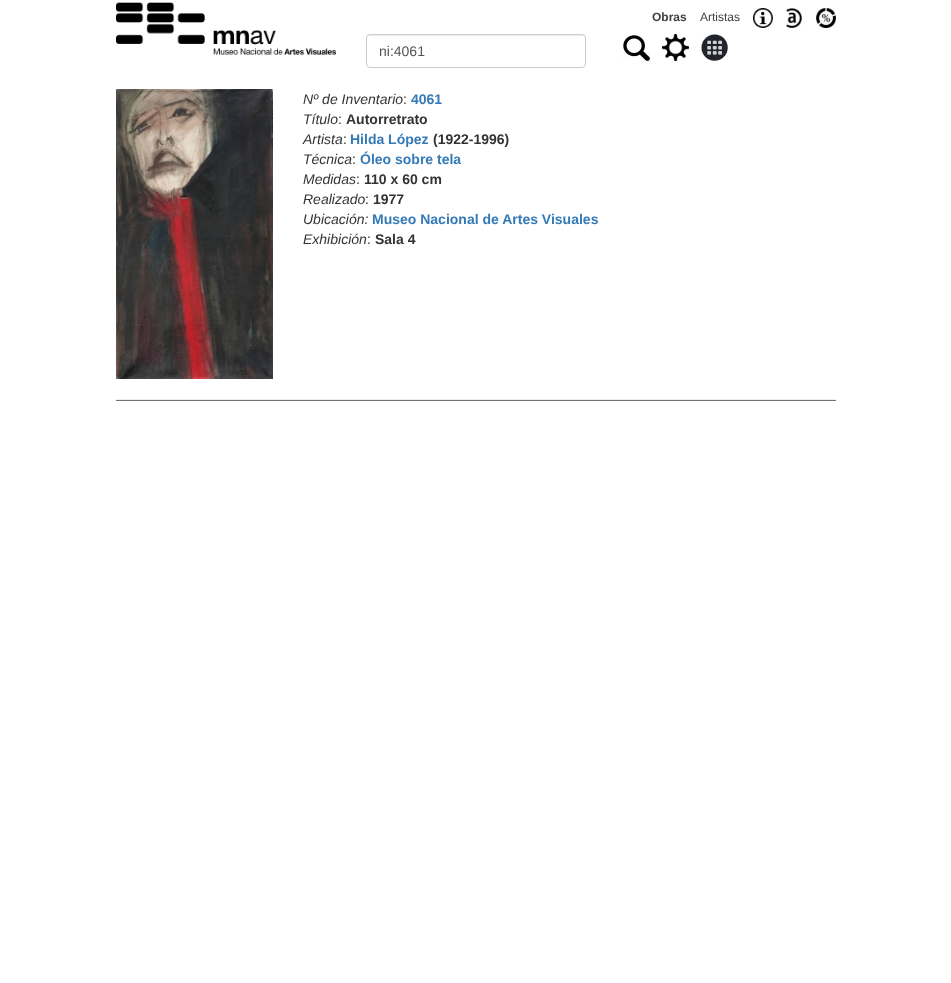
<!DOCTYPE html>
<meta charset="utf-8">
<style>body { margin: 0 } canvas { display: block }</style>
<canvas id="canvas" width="951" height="983"></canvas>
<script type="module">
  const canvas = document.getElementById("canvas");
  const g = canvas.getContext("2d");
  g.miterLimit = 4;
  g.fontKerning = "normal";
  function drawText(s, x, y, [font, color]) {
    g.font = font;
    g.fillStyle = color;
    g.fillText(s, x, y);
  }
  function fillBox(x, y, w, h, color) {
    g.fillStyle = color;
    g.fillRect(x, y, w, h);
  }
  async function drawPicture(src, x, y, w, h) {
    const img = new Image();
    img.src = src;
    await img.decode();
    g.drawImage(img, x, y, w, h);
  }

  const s1 = ["bold 12px Liberation Sans", "#404040"];
  const s2 = ["12px Liberation Sans", "#404040"];
  const s3 = ["14px Liberation Sans", "#555555"];
  const s4 = ["italic 14px Liberation Sans", "#333333"];
  const s5 = ["14px Liberation Sans", "#333333"];
  const s6 = ["bold 14px Liberation Sans", "#337AB7"];
  const s7 = ["bold 14px Liberation Sans", "#333333"];

  fillBox(0, 0, 951, 983, "#FFFFFF");
  await drawPicture("pic1.png", 116, 2, 220, 53);
  drawText("Obras", 652, 21, s1);
  drawText("Artistas", 700, 21, s2);
  await drawPicture("pic2.png", 753, 8, 20, 20);
  await drawPicture("pic3.png", 786, 8, 16, 20);
  await drawPicture("pic4.png", 816, 8, 20, 20);
  g.fillStyle = "#ECECEC";
  g.beginPath();
  g.moveTo(370, 36);
  g.lineTo(582, 36);
  g.bezierCurveTo(584, 36, 585, 37, 585, 39);
  g.lineTo(585, 38);
  g.bezierCurveTo(585, 36, 584, 35, 582, 35);
  g.lineTo(370, 35);
  g.bezierCurveTo(368, 35, 367, 36, 367, 38);
  g.lineTo(367, 39);
  g.bezierCurveTo(367, 37, 368, 36, 370, 36);
  g.closePath();
  g.fill();
  g.beginPath();
  g.roundRect(366.5, 34.5, 219, 33, 3.5);
  g.strokeStyle = "#CCCCCC";
  g.stroke();
  drawText("ni:4061", 379, 56, s3);
  await drawPicture("pic5.png", 623, 35, 27, 26);
  await drawPicture("pic6.png", 662, 34, 27, 27);
  await drawPicture("pic7.png", 701, 34, 27, 27);
  await drawPicture("pic8.png", 116, 89, 157, 290);
  drawText("Nº de Inventario", 303, 104, s4);
  drawText(":", 403, 104, s5);
  drawText("4061", 411, 104, s6);
  drawText("Título", 303, 124, s4);
  drawText(":", 338, 124, s5);
  drawText("Autorretrato", 346, 124, s7);
  drawText("Artista", 303, 144, s4);
  drawText(":", 343, 144, s5);
  drawText("Hilda López", 350, 144, s6);
  drawText("(1922-1996)", 433, 144, s7);
  drawText("Técnica", 303, 164, s4);
  drawText(":", 352, 164, s5);
  drawText("Óleo sobre tela", 360, 164, s6);
  drawText("Medidas", 303, 184, s4);
  drawText(":", 356, 184, s5);
  drawText("110 x 60 cm", 364, 184, s7);
  drawText("Realizado", 303, 204, s4);
  drawText(":", 365, 204, s5);
  drawText("1977", 373, 204, s7);
  drawText("Ubicación:", 303, 224, s4);
  drawText("Museo Nacional de Artes Visuales", 372, 224, s6);
  drawText("Exhibición", 303, 244, s4);
  drawText(":", 367, 244, s5);
  drawText("Sala 4", 375, 244, s7);
  fillBox(116, 400, 720, 1, "#707070");
  fillBox(116, 399, 720, 1, "#EEEEEE");
</script>
